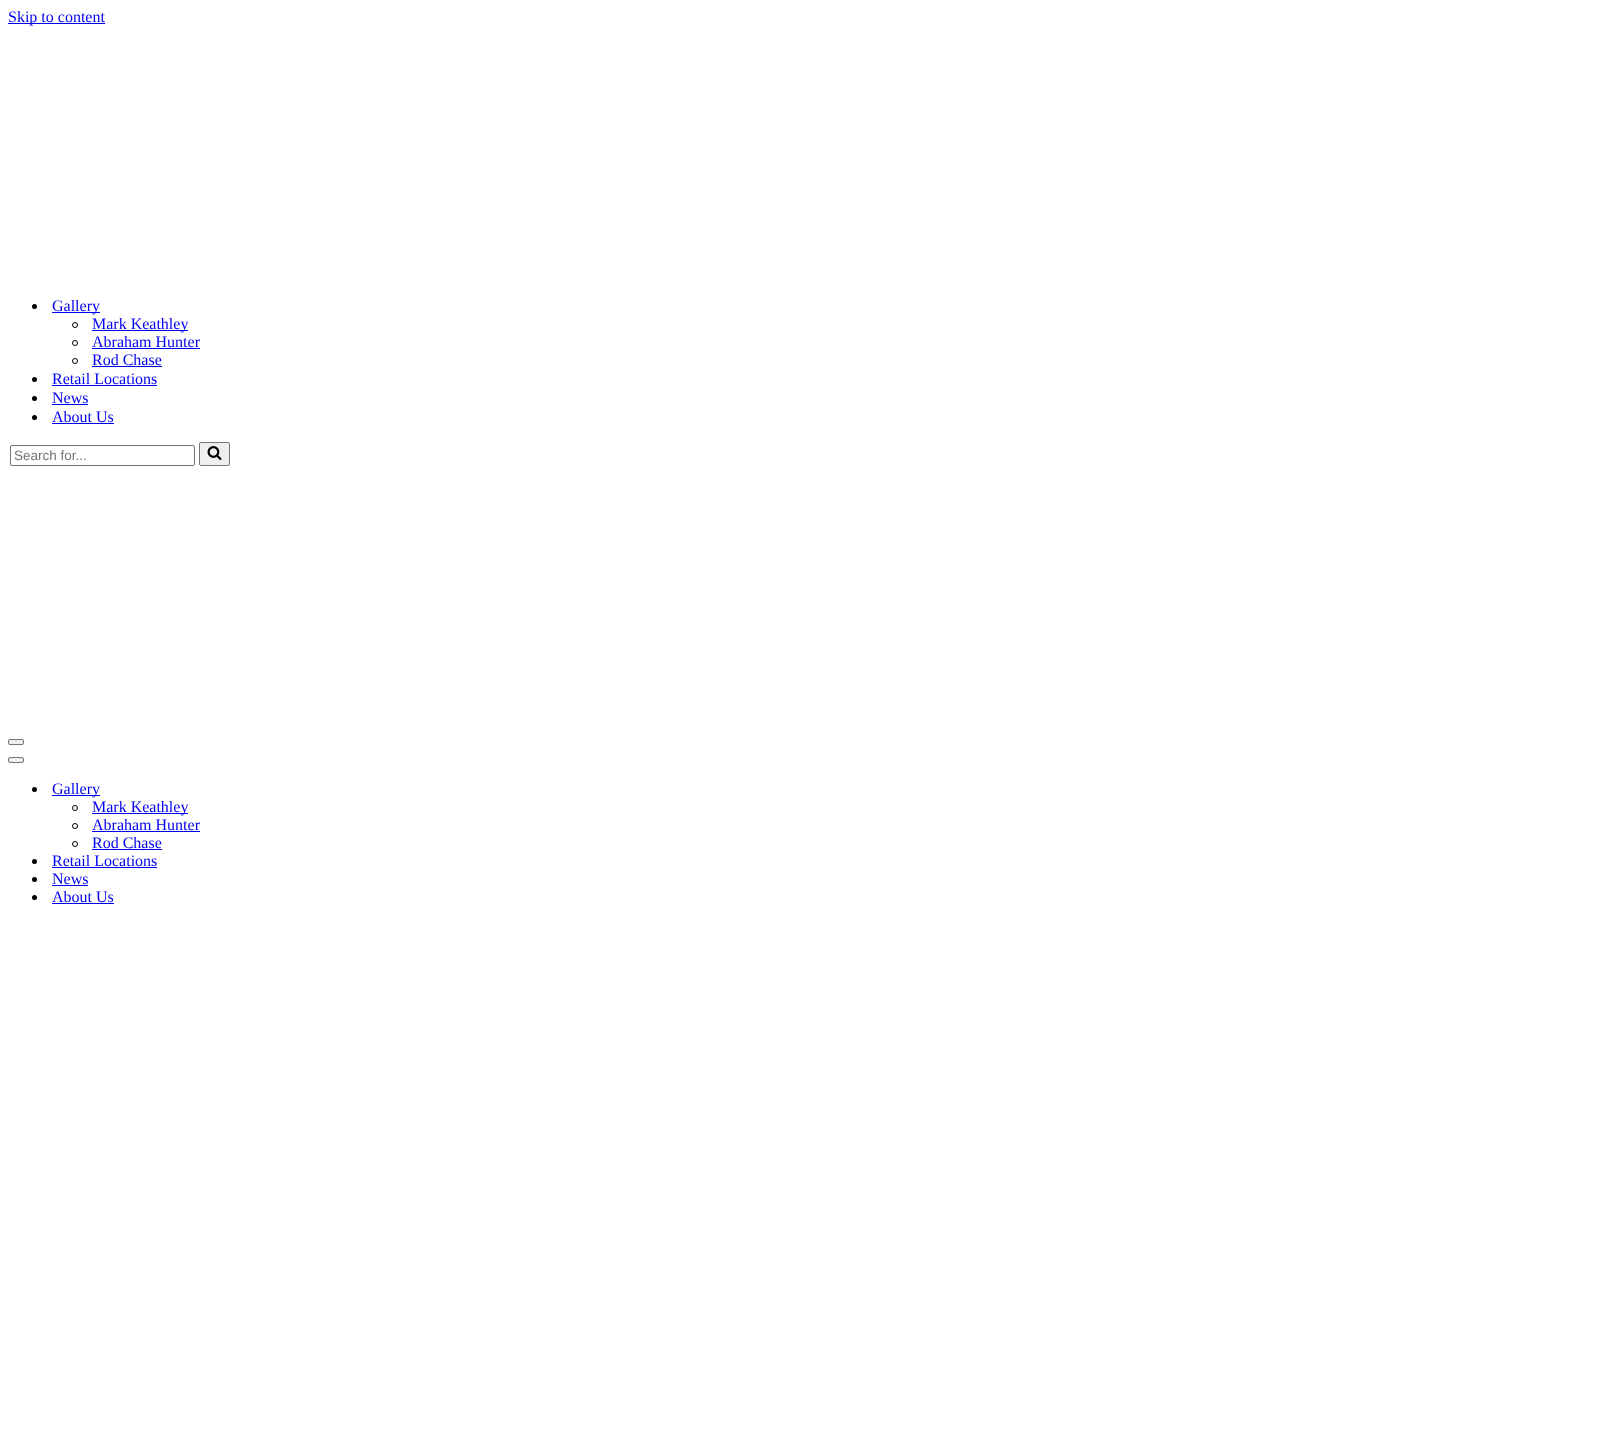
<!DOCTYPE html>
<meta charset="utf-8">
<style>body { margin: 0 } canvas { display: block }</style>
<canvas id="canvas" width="1614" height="1452"></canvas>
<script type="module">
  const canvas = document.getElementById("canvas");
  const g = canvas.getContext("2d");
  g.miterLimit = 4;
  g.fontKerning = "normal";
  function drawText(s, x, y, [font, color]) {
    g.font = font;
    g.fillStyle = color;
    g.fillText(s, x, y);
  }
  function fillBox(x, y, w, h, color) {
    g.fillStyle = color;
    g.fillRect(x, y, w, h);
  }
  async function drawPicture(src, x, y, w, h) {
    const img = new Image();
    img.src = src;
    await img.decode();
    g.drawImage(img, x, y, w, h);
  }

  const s1 = ["16px Liberation Serif", "#0000EE"];
  const s2 = ["13.5px Liberation Sans", "#757575"];

  fillBox(0, 0, 1614, 1452, "#FFFFFF");
  fillBox(8, 23, 97, 1, "#0000EE");
  drawText("Skip to content", 8, 22, s1);
  g.fillStyle = "#000000";
  g.beginPath();
  g.arc(34.5, 306.5, 2.5, 0, Math.PI * 2);
  g.fill();
  fillBox(52, 312, 48, 1, "#0000EE");
  drawText("Gallery", 52, 311, s1);
  g.beginPath();
  g.arc(75, 325, 2.5, 0, Math.PI * 2);
  g.strokeStyle = "#000000";
  g.stroke();
  fillBox(92, 330, 96, 1, "#0000EE");
  drawText("Mark Keathley", 92, 329, s1);
  g.beginPath();
  g.arc(75, 343, 2.5, 0, Math.PI * 2);
  g.stroke();
  drawText("Abraham Hunter", 92, 347, s1);
  fillBox(92, 348, 108, 1, "#0000EE");
  g.beginPath();
  g.arc(75, 361, 2.5, 0, Math.PI * 2);
  g.stroke();
  drawText("Rod Chase", 92, 365, s1);
  fillBox(92, 366, 70, 1, "#0000EE");
  g.fillStyle = "#000000";
  g.beginPath();
  g.arc(34.5, 379.5, 2.5, 0, Math.PI * 2);
  g.fill();
  drawText("Retail Locations", 52, 384, s1);
  fillBox(52, 385, 105, 1, "#0000EE");
  g.fillStyle = "#000000";
  g.beginPath();
  g.arc(34.5, 398.5, 2.5, 0, Math.PI * 2);
  g.fill();
  drawText("News", 52, 403, s1);
  fillBox(52, 404, 36, 1, "#0000EE");
  g.fillStyle = "#000000";
  g.beginPath();
  g.arc(34.5, 417.5, 2.5, 0, Math.PI * 2);
  g.fill();
  drawText("About Us", 52, 422, s1);
  fillBox(52, 423, 62, 1, "#0000EE");
  g.beginPath();
  g.roundRect(10.5, 445.5, 184, 20, 1.5);
  g.strokeStyle = "#767676";
  g.stroke();
  drawText("Search for...", 14, 460, s2);
  g.fillStyle = "#EFEFEF";
  g.beginPath();
  g.roundRect(199.5, 442.5, 30, 23, 1.5);
  g.fill();
  g.stroke();
  await drawPicture("pic1.png", 207, 446, 15, 14);
  g.beginPath();
  g.roundRect(8.5, 739.5, 15, 5, 1.5);
  g.fill();
  g.stroke();
  g.beginPath();
  g.roundRect(8.5, 757.5, 15, 5, 1.5);
  g.fill();
  g.stroke();
  g.fillStyle = "#000000";
  g.beginPath();
  g.arc(34.5, 789.5, 2.5, 0, Math.PI * 2);
  g.fill();
  fillBox(52, 795, 48, 1, "#0000EE");
  drawText("Gallery", 52, 794, s1);
  g.beginPath();
  g.arc(75, 808, 2.5, 0, Math.PI * 2);
  g.strokeStyle = "#000000";
  g.stroke();
  fillBox(92, 813, 96, 1, "#0000EE");
  drawText("Mark Keathley", 92, 812, s1);
  g.beginPath();
  g.arc(75, 826, 2.5, 0, Math.PI * 2);
  g.stroke();
  drawText("Abraham Hunter", 92, 830, s1);
  fillBox(92, 831, 108, 1, "#0000EE");
  g.beginPath();
  g.arc(75, 844, 2.5, 0, Math.PI * 2);
  g.stroke();
  drawText("Rod Chase", 92, 848, s1);
  fillBox(92, 849, 70, 1, "#0000EE");
  g.fillStyle = "#000000";
  g.beginPath();
  g.arc(34.5, 861.5, 2.5, 0, Math.PI * 2);
  g.fill();
  drawText("Retail Locations", 52, 866, s1);
  fillBox(52, 867, 105, 1, "#0000EE");
  g.fillStyle = "#000000";
  g.beginPath();
  g.arc(34.5, 879.5, 2.5, 0, Math.PI * 2);
  g.fill();
  drawText("News", 52, 884, s1);
  fillBox(52, 885, 36, 1, "#0000EE");
  g.fillStyle = "#000000";
  g.beginPath();
  g.arc(34.5, 897.5, 2.5, 0, Math.PI * 2);
  g.fill();
  drawText("About Us", 52, 902, s1);
  fillBox(52, 903, 62, 1, "#0000EE");
</script>
